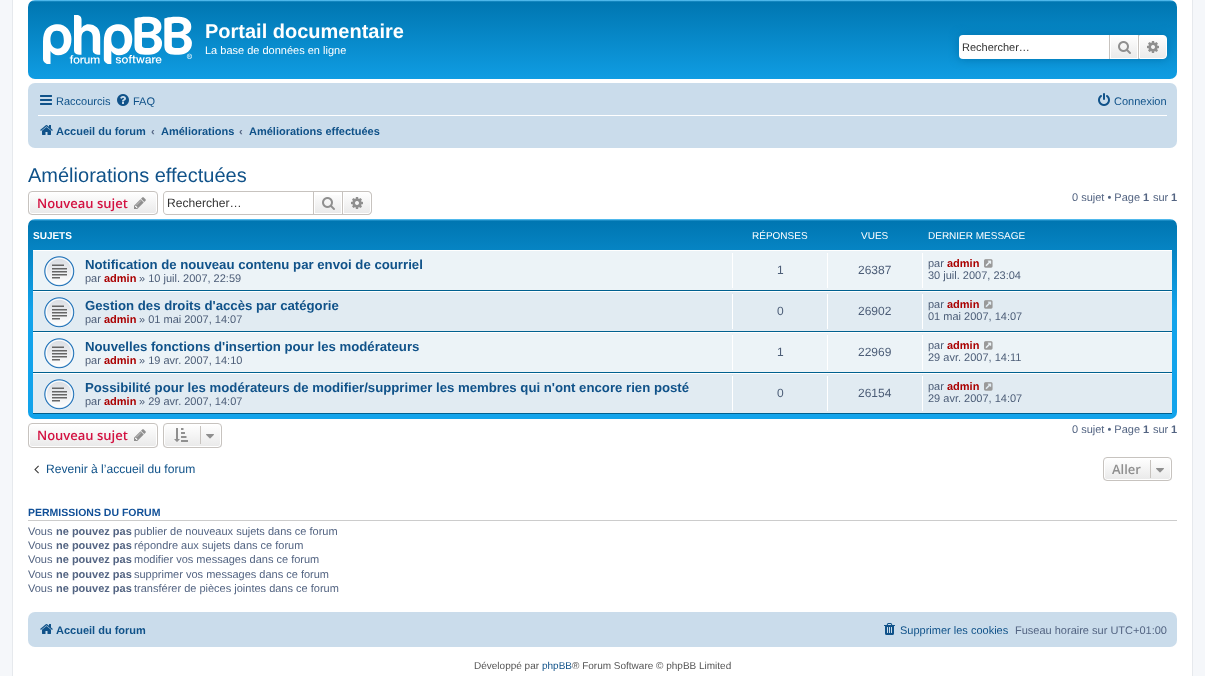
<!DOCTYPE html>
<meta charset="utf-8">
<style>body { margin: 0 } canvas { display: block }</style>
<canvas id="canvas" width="1205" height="676"></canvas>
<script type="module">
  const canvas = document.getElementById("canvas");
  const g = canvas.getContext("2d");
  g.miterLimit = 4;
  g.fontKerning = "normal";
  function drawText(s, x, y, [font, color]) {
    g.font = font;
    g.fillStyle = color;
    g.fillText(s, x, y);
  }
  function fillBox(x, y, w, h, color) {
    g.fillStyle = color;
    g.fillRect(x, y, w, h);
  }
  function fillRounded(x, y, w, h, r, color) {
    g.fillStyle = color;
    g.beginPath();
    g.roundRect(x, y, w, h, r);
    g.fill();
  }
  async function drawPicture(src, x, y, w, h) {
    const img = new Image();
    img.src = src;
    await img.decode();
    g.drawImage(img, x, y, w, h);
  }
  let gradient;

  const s1 = ["bold 20px Liberation Sans", "#FFFFFF"];
  const s2 = ["11px Liberation Sans", "#FFFFFF"];
  const s3 = ["11px Liberation Sans", "#333333"];
  const s4 = ["11px Liberation Sans", "#105289"];
  const s5 = ["bold 11px Liberation Sans", "#105289"];
  const s6 = ["bold 11px Liberation Sans", "#536482"];
  const s7 = ["20px Liberation Sans", "#105289"];
  const s8 = ["600 13px Open Sans", "#D31141"];
  const s9 = ["12.1px Liberation Sans", "#333333"];
  const s10 = ["11px Liberation Sans", "#536482"];
  const s11 = ["bold 10px Liberation Sans", "#FFFFFF"];
  const s12 = ["10px Liberation Sans", "#FFFFFF"];
  const s13 = ["bold 13.2px Liberation Sans", "#105289"];
  const s14 = ["11px Liberation Sans", "#4C5D77"];
  const s15 = ["bold 11px Liberation Sans", "#AA0000"];
  const s16 = ["12px Liberation Sans", "#4C5D77"];
  const s17 = ["12.1px Liberation Sans", "#105289"];
  const s18 = ["600 13px Open Sans", "#8F8F8F"];
  const s19 = ["bold 10.5px Liberation Sans", "#115098"];
  const s20 = ["10px Liberation Sans", "#555555"];
  const s21 = ["10px Liberation Sans", "#105289"];

  fillBox(0, 0, 1205, 676, "#F5F7FA");
  g.fillStyle = "#FFFFFF";
  g.beginPath();
  g.rect(12.5, -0.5, 1180, 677);
  g.fill();
  g.strokeStyle = "#E6E9ED";
  g.stroke();
  gradient = g.createLinearGradient(603, 0, 603, 92);
  gradient.addColorStop(0, "#6ACEFF");
  gradient.addColorStop(0.02, "#0076B1");
  gradient.addColorStop(1, "#12A3EB");
  g.fillStyle = gradient;
  g.beginPath();
  g.roundRect(28, 0, 1149, 79, 7);
  g.fill();
  await drawPicture("pic1.png", 43, 15, 149, 49);
  drawText("Portail documentaire", 205, 38, s1);
  drawText("La base de données en ligne", 205, 54, s2);
  g.fillStyle = "#0075B0";
  g.filter = "blur(5px)";
  g.beginPath();
  g.roundRect(959, 35, 208, 24, 4);
  g.fill();
  g.filter = "none";
  g.fillStyle = "#FFFFFF";
  g.beginPath();
  g.roundRect(959, 35, 150, 24, [4, 0, 0, 4]);
  g.fill();
  drawText("Rechercher…", 962, 51, s3);
  gradient = g.createLinearGradient(1124, 35, 1124, 59);
  gradient.addColorStop(0, "#FFFFFF");
  gradient.addColorStop(1, "#E9E9E9");
  g.fillStyle = gradient;
  g.fillRect(1111, 36, 26, 22);
  g.strokeStyle = "#FFFFFF";
  g.strokeRect(1110.5, 35.5, 27, 23);
  fillBox(1138, 35, 1, 24, "#C7C3BF");
  fillBox(1109, 35, 1, 24, "#C7C3BF");
  await drawPicture("pic2.png", 1118, 41, 13, 13);
  gradient = g.createLinearGradient(1153, 35, 1153, 59);
  gradient.addColorStop(0, "#FFFFFF");
  gradient.addColorStop(1, "#E9E9E9");
  g.fillStyle = gradient;
  g.beginPath();
  g.roundRect(1139.5, 35.5, 27, 23, [0, 3.5, 3.5, 0]);
  g.fill();
  g.stroke();
  await drawPicture("pic3.png", 1147, 41, 12, 12);
  fillRounded(28, 83, 1149, 65, 7, "#CADCEB");
  await drawPicture("pic4.png", 40, 95, 12, 10);
  drawText("Raccourcis", 56, 105, s4);
  await drawPicture("pic5.png", 117, 94, 12, 12);
  drawText("FAQ", 133, 105, s4);
  await drawPicture("pic6.png", 1098, 93, 12, 13);
  drawText("Connexion", 1114, 105, s4);
  fillBox(38, 115, 1129, 1, "#FFFFFF");
  await drawPicture("pic7.png", 40, 125, 13, 10);
  drawText("Accueil du forum", 56, 135, s5);
  drawText("‹", 151, 135, s6);
  drawText("Améliorations", 161, 135, s5);
  drawText("‹", 239, 135, s6);
  drawText("Améliorations effectuées", 249, 135, s5);
  drawText("Améliorations effectuées", 28, 182, s7);
  g.save();
  g.beginPath();
  g.roundRect(28, 191, 130, 24, 4);
  g.clip();
  gradient = g.createLinearGradient(93, 192, 93, 214);
  gradient.addColorStop(0, "#FFFFFF");
  gradient.addColorStop(1, "#E9E9E9");
  g.fillStyle = gradient;
  g.fillRect(28, 192, 130, 22);
  g.restore();
  g.beginPath();
  g.roundRect(29.5, 192.5, 127, 21, 2.5);
  g.stroke();
  g.beginPath();
  g.roundRect(28.5, 191.5, 129, 23, 3.5);
  g.strokeStyle = "#C7C3BF";
  g.stroke();
  drawText("Nouveau sujet", 37, 208, s8);
  await drawPicture("pic8.png", 134, 197, 12, 12);
  g.fillStyle = "#C7C3BF";
  g.beginPath();
  g.moveTo(167, 191);
  g.lineTo(313, 191);
  g.lineTo(313, 215);
  g.lineTo(167, 215);
  g.bezierCurveTo(165, 215, 163, 213, 163, 211);
  g.lineTo(163, 195);
  g.bezierCurveTo(163, 193, 165, 191, 167, 191);
  g.closePath();
  g.moveTo(167, 192);
  g.lineTo(313, 192);
  g.lineTo(313, 214);
  g.lineTo(167, 214);
  g.bezierCurveTo(165, 214, 164, 213, 164, 211);
  g.lineTo(164, 195);
  g.bezierCurveTo(164, 193, 165, 192, 167, 192);
  g.closePath();
  g.fill("evenodd");
  drawText("Rechercher…", 167, 207, s9);
  gradient = g.createLinearGradient(328, 192, 328, 214);
  gradient.addColorStop(0, "#FFFFFF");
  gradient.addColorStop(1, "#E9E9E9");
  g.fillStyle = gradient;
  g.fillRect(315, 195, 26, 18);
  g.strokeRect(313.5, 191.5, 29, 23);
  await drawPicture("pic9.png", 322, 197, 13, 13);
  gradient = g.createLinearGradient(357, 192, 357, 214);
  gradient.addColorStop(0, "#FFFFFF");
  gradient.addColorStop(1, "#E9E9E9");
  g.fillStyle = gradient;
  g.beginPath();
  g.roundRect(343.5, 192.5, 27, 21, [0, 2.5, 2.5, 0]);
  g.fill();
  g.strokeStyle = "#FFFFFF";
  g.stroke();
  g.fillStyle = "#C7C3BF";
  g.beginPath();
  g.moveTo(343, 191);
  g.lineTo(368, 191);
  g.bezierCurveTo(370, 191, 372, 193, 372, 195);
  g.lineTo(372, 211);
  g.bezierCurveTo(372, 213, 370, 215, 368, 215);
  g.lineTo(343, 215);
  g.closePath();
  g.moveTo(343, 192);
  g.lineTo(368, 192);
  g.bezierCurveTo(369.5, 192, 371, 193.5, 371, 195);
  g.lineTo(371, 211);
  g.bezierCurveTo(371, 212.5, 369.5, 214, 368, 214);
  g.lineTo(343, 214);
  g.closePath();
  g.fill("evenodd");
  await drawPicture("pic10.png", 351, 197, 12, 12);
  drawText("0 sujet • Page", 1072, 201, s10);
  drawText("1", 1143, 201, s6);
  drawText("sur", 1153, 201, s10);
  drawText("1", 1171, 201, s6);
  gradient = g.createLinearGradient(603, 219, 603, 419);
  gradient.addColorStop(0, "#6ACEFF");
  gradient.addColorStop(0.01, "#0076B1");
  gradient.addColorStop(0.46, "#12A3EB");
  gradient.addColorStop(1, "#12A3EB");
  g.fillStyle = gradient;
  g.beginPath();
  g.roundRect(28, 219, 1149, 200, 7);
  g.fill();
  drawText("SUJETS", 33, 239, s11);
  drawText("RÉPONSES", 752, 239, s12);
  drawText("VUES", 861, 239, s12);
  drawText("DERNIER MESSAGE", 928, 239, s12);
  fillBox(33, 251, 1139, 39, "#ECF3F7");
  fillBox(33, 250, 1139, 1, "#FFFFFF");
  fillBox(33, 290, 1139, 1, "#00608F");
  await drawPicture("pic11.png", 44, 256, 31, 31);
  drawText("Notification de nouveau contenu par envoi de courriel", 85, 269, s13);
  drawText("par", 85, 282, s14);
  drawText("admin", 104, 282, s15);
  drawText("» 10 juil. 2007, 22:59", 139, 282, s14);
  fillBox(732, 253, 1, 35, "#FFFFFF");
  drawText("1", 777, 274, s16);
  fillBox(827, 253, 1, 35, "#FFFFFF");
  drawText("26387", 858, 274, s16);
  fillBox(922, 253, 1, 35, "#FFFFFF");
  drawText("par", 928, 267, s14);
  drawText("admin", 947, 267, s15);
  await drawPicture("pic12.png", 984, 259, 9, 9);
  drawText("30 juil. 2007, 23:04", 928, 279, s14);
  fillBox(33, 292, 1139, 39, "#E1EBF2");
  fillBox(33, 291, 1139, 1, "#FFFFFF");
  fillBox(33, 331, 1139, 1, "#00608F");
  await drawPicture("pic13.png", 44, 297, 31, 31);
  drawText("Gestion des droits d'accès par catégorie", 85, 310, s13);
  drawText("par", 85, 323, s14);
  drawText("admin", 104, 323, s15);
  drawText("» 01 mai 2007, 14:07", 139, 323, s14);
  fillBox(732, 294, 1, 35, "#FFFFFF");
  drawText("0", 777, 315, s16);
  fillBox(827, 294, 1, 35, "#FFFFFF");
  drawText("26902", 858, 315, s16);
  fillBox(922, 294, 1, 35, "#FFFFFF");
  drawText("par", 928, 308, s14);
  drawText("admin", 947, 308, s15);
  await drawPicture("pic14.png", 984, 300, 9, 9);
  drawText("01 mai 2007, 14:07", 928, 320, s14);
  fillBox(33, 333, 1139, 39, "#ECF3F7");
  fillBox(33, 332, 1139, 1, "#FFFFFF");
  fillBox(33, 372, 1139, 1, "#00608F");
  await drawPicture("pic11.png", 44, 338, 31, 31);
  drawText("Nouvelles fonctions d'insertion pour les modérateurs", 85, 351, s13);
  drawText("par", 85, 364, s14);
  drawText("admin", 104, 364, s15);
  drawText("» 19 avr. 2007, 14:10", 139, 364, s14);
  fillBox(732, 335, 1, 35, "#FFFFFF");
  drawText("1", 777, 356, s16);
  fillBox(827, 335, 1, 35, "#FFFFFF");
  drawText("22969", 858, 356, s16);
  fillBox(922, 335, 1, 35, "#FFFFFF");
  drawText("par", 928, 349, s14);
  drawText("admin", 947, 349, s15);
  await drawPicture("pic12.png", 984, 341, 9, 9);
  drawText("29 avr. 2007, 14:11", 928, 361, s14);
  fillBox(33, 374, 1139, 39, "#E1EBF2");
  fillBox(33, 373, 1139, 1, "#FFFFFF");
  fillBox(33, 413, 1139, 1, "#00608F");
  await drawPicture("pic13.png", 44, 379, 31, 31);
  drawText("Possibilité pour les modérateurs de modifier/supprimer les membres qui n'ont encore rien posté", 85, 392, s13);
  drawText("par", 85, 405, s14);
  drawText("admin", 104, 405, s15);
  drawText("» 29 avr. 2007, 14:07", 139, 405, s14);
  fillBox(732, 376, 1, 35, "#FFFFFF");
  drawText("0", 777, 397, s16);
  fillBox(827, 376, 1, 35, "#FFFFFF");
  drawText("26154", 858, 397, s16);
  fillBox(922, 376, 1, 35, "#FFFFFF");
  drawText("par", 928, 390, s14);
  drawText("admin", 947, 390, s15);
  await drawPicture("pic14.png", 984, 382, 9, 9);
  drawText("29 avr. 2007, 14:07", 928, 402, s14);
  g.save();
  g.beginPath();
  g.roundRect(28, 423, 130, 25, 4);
  g.clip();
  gradient = g.createLinearGradient(93, 424, 93, 447);
  gradient.addColorStop(0, "#FFFFFF");
  gradient.addColorStop(1, "#E9E9E9");
  g.fillStyle = gradient;
  g.fillRect(28, 424, 130, 23);
  g.restore();
  g.beginPath();
  g.roundRect(29.5, 424.5, 127, 22, 2.5);
  g.stroke();
  g.beginPath();
  g.roundRect(28.5, 423.5, 129, 24, 3.5);
  g.strokeStyle = "#C7C3BF";
  g.stroke();
  drawText("Nouveau sujet", 37, 440, s8);
  await drawPicture("pic8.png", 134, 429, 12, 12);
  g.save();
  g.beginPath();
  g.roundRect(163, 423, 59, 25, 4);
  g.clip();
  gradient = g.createLinearGradient(193, 424, 193, 447);
  gradient.addColorStop(0, "#FFFFFF");
  gradient.addColorStop(1, "#E9E9E9");
  g.fillStyle = gradient;
  g.fillRect(163, 424, 59, 23);
  g.restore();
  g.beginPath();
  g.roundRect(164.5, 424.5, 56, 22, 2.5);
  g.strokeStyle = "#FFFFFF";
  g.stroke();
  g.beginPath();
  g.roundRect(163.5, 423.5, 58, 24, 3.5);
  g.strokeStyle = "#C7C3BF";
  g.stroke();
  await drawPicture("pic15.png", 174, 428, 14, 14);
  fillBox(200, 426, 1, 18, "#C7C3BF");
  await drawPicture("pic16.png", 206, 434, 8, 5);
  drawText("0 sujet • Page", 1072, 433, s10);
  drawText("1", 1143, 433, s6);
  drawText("sur", 1153, 433, s10);
  drawText("1", 1171, 433, s6);
  await drawPicture("pic17.png", 34, 465, 5, 9);
  drawText("Revenir à l’accueil du forum", 46, 473, s17);
  g.save();
  g.beginPath();
  g.roundRect(1103, 457, 69, 24, 4);
  g.clip();
  gradient = g.createLinearGradient(1138, 458, 1138, 480);
  gradient.addColorStop(0, "#FFFFFF");
  gradient.addColorStop(1, "#E9E9E9");
  g.fillStyle = gradient;
  g.fillRect(1103, 458, 69, 22);
  g.restore();
  g.beginPath();
  g.roundRect(1104.5, 458.5, 66, 21, 2.5);
  g.strokeStyle = "#FFFFFF";
  g.stroke();
  g.beginPath();
  g.roundRect(1103.5, 457.5, 68, 23, 3.5);
  g.strokeStyle = "#C7C3BF";
  g.stroke();
  drawText("Aller", 1112, 474, s18);
  fillBox(1150, 460, 1, 18, "#C7C3BF");
  await drawPicture("pic16.png", 1156, 468, 8, 5);
  fillBox(28, 520, 1149, 1, "#CCCCCC");
  drawText("PERMISSIONS DU FORUM", 28, 516, s19);
  drawText("Vous", 28, 535, s10);
  drawText("ne pouvez pas", 56, 535, s6);
  drawText("publier de nouveaux sujets dans ce forum", 134, 535, s10);
  drawText("Vous", 28, 549, s10);
  drawText("ne pouvez pas", 56, 549, s6);
  drawText("répondre aux sujets dans ce forum", 134, 549, s10);
  drawText("Vous", 28, 563, s10);
  drawText("ne pouvez pas", 56, 563, s6);
  drawText("modifier vos messages dans ce forum", 134, 563, s10);
  drawText("Vous", 28, 578, s10);
  drawText("ne pouvez pas", 56, 578, s6);
  drawText("supprimer vos messages dans ce forum", 134, 578, s10);
  drawText("Vous", 28, 592, s10);
  drawText("ne pouvez pas", 56, 592, s6);
  drawText("transférer de pièces jointes dans ce forum", 134, 592, s10);
  fillRounded(28, 612, 1149, 35, 7, "#CADCEB");
  await drawPicture("pic7.png", 40, 624, 13, 10);
  drawText("Accueil du forum", 56, 634, s5);
  await drawPicture("pic18.png", 884, 623, 11, 12);
  drawText("Supprimer les cookies", 900, 634, s4);
  drawText("Fuseau horaire sur UTC+01:00", 1015, 634, s10);
  drawText("Développé par", 474, 669, s20);
  drawText("phpBB", 542, 669, s21);
  drawText("® Forum Software © phpBB Limited", 572, 669, s20);
</script>
